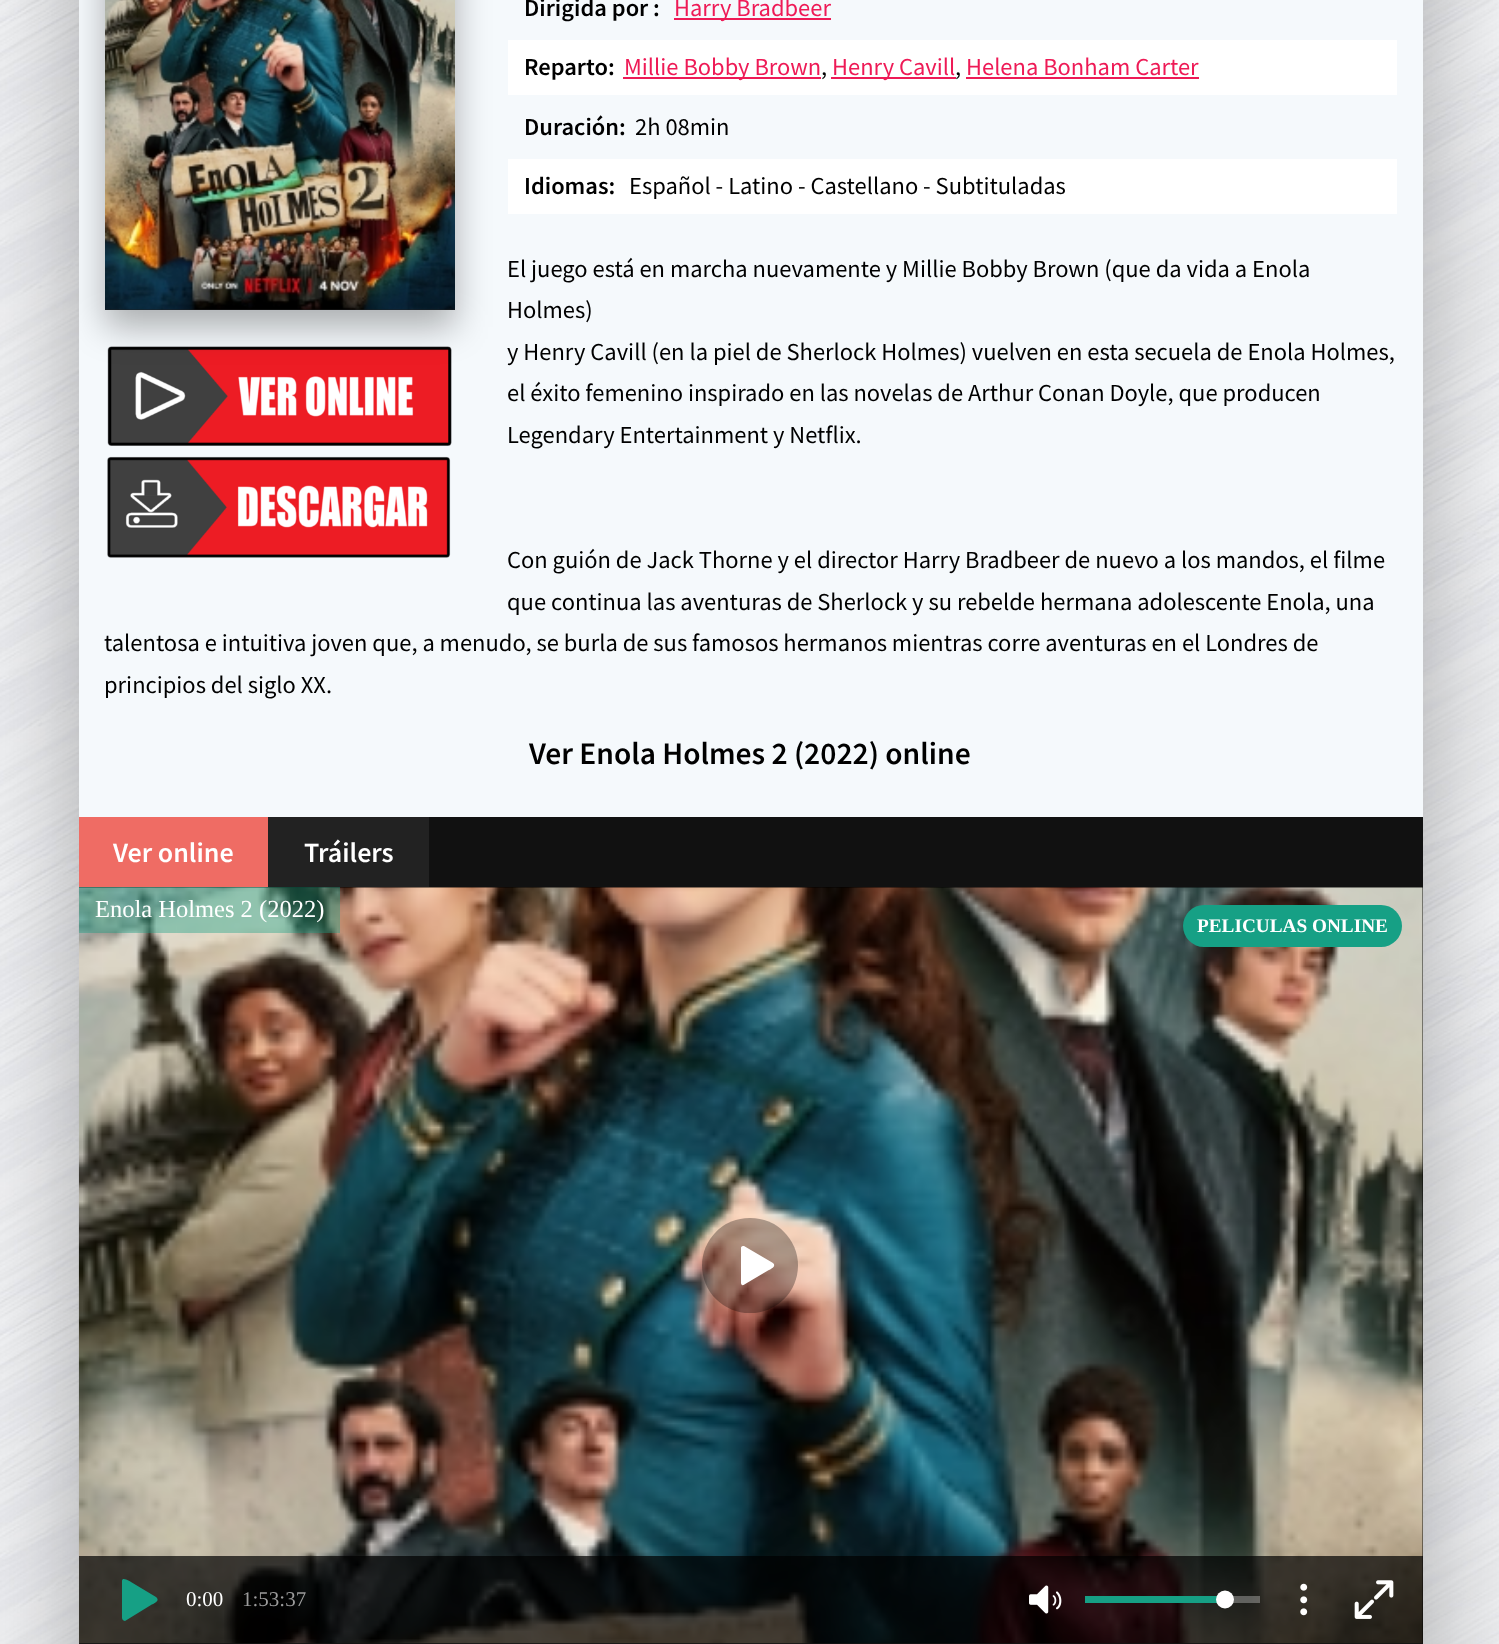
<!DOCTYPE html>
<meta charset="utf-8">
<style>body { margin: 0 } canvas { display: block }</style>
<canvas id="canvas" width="1499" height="1644"></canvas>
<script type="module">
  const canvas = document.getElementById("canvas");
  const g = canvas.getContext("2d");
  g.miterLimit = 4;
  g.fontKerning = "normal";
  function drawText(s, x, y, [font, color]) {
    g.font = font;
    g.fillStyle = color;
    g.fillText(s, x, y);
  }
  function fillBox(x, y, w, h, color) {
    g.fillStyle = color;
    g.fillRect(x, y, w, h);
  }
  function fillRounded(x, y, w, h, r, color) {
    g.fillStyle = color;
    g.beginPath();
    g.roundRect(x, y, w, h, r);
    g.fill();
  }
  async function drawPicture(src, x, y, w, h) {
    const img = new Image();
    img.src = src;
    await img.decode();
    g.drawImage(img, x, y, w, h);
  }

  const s1 = ["600 24.5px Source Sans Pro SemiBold", "#000000"];
  const s2 = ["24.5px Source Sans Pro", "#EE1A56"];
  const s3 = ["24.5px Source Sans Pro", "#000000"];
  const s4 = ["600 31.5px Source Sans Pro SemiBold", "#000000"];
  const s5 = ["600 28px Source Sans Pro SemiBold", "#FFFFFF"];
  const s6 = ["24.5px Liberation Serif", "#FFFFFF"];
  const s7 = ["bold 19.25px Liberation Serif", "#FFFFFF"];
  const s8 = ["21px Liberation Serif", "#FFFFFF"];
  const s9 = ["21px Liberation Serif", "#9B9B9B"];

  fillBox(0, 0, 1499, 1644, "#FFFFFF");
  await drawPicture("pic1.png", 0, 0, 1499, 1644);
  g.fillStyle = "rgba(0, 0, 0, 0.3)";
  g.filter = "blur(52.5px)";
  g.beginPath();
  g.rect(79, -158, 1344, 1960);
  g.fill();
  g.filter = "none";
  fillBox(79, 0, 1344, 817, "#F5F9FC");
  await drawPicture("pic3.png", 107, 346, 345, 100);
  fillBox(508, 40, 889, 55, "#FFFFFF");
  fillBox(508, 159, 889, 55, "#FFFFFF");
  g.save();
  g.beginPath();
  g.rect(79, 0, 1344, 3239);
  g.clip();
  g.fillStyle = "rgba(0, 0, 0, 0.3)";
  g.filter = "blur(17.5px)";
  g.beginPath();
  g.rect(105, -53, 350, 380);
  g.fill();
  g.filter = "none";
  g.restore();
  fillBox(105, 309, 350, 1, "#222222");
  await drawPicture("pic2.png", 105, 0, 350, 310);
  await drawPicture("pic4.png", 107, 456, 344, 102);
  drawText("Dirigida por :", 524, 16, s1);
  fillBox(674, 18, 157, 2, "#EE1A56");
  drawText("Harry Bradbeer", 674, 16, s2);
  drawText("Reparto:", 524, 75, s1);
  fillBox(623, 77, 198, 2, "#EE1A56");
  drawText("Millie Bobby Brown", 624, 75, s2);
  drawText(",", 821, 75, s3);
  fillBox(831, 77, 125, 2, "#EE1A56");
  drawText("Henry Cavill", 832, 75, s2);
  drawText(",", 955, 75, s3);
  drawText("Helena Bonham Carter", 966, 75, s2);
  fillBox(966, 77, 233, 2, "#EE1A56");
  drawText("Duración:", 524, 135, s1);
  drawText("2h 08min", 635, 135, s3);
  drawText("Idiomas:", 524, 194, s1);
  drawText("Español - Latino - Castellano - Subtituladas", 629, 194, s3);
  drawText("El juego está en marcha nuevamente y Millie Bobby Brown (que da vida a Enola", 507, 277, s3);
  drawText("Holmes)", 507, 318, s3);
  drawText("y Henry Cavill (en la piel de Sherlock Holmes) vuelven en esta secuela de Enola Holmes,", 507, 360, s3);
  drawText("el éxito femenino inspirado en las novelas de Arthur Conan Doyle, que producen", 507, 401, s3);
  drawText("Legendary Entertainment y Netflix.", 507, 443, s3);
  drawText("Con guión de Jack Thorne y el director Harry Bradbeer de nuevo a los mandos, el filme", 507, 568, s3);
  drawText("que continua las aventuras de Sherlock y su rebelde hermana adolescente Enola, una", 507, 610, s3);
  drawText("talentosa e intuitiva joven que, a menudo, se burla de sus famosos hermanos mientras corre aventuras en el Londres de", 104, 651, s3);
  drawText("principios del siglo XX.", 104, 693, s3);
  drawText("Ver Enola Holmes 2 (2022) online", 529, 764, s4);
  fillBox(429, 817, 994, 70, "#111111");
  fillBox(79, 817, 189, 70, "#EF6C64");
  drawText("Ver online", 113, 862, s5);
  fillBox(268, 817, 161, 70, "#222222");
  drawText("Tráilers", 304, 862, s5);
  fillBox(79, 887, 1344, 756, "#000000");
  fillBox(79, 1643, 1344, 1, "#111111");
  await drawPicture("pic5.png", 78, 887, 1345, 757);
  fillBox(79, 887, 261, 46, "rgba(22, 160, 133, 0.4)");
  drawText("Enola Holmes 2 (2022)", 95, 917, s6);
  fillRounded(1183, 905, 219, 42, 21, "#16A085");
  drawText("PELICULAS ONLINE", 1197, 932, s7);
  fillRounded(702, 1218, 96, 95, 47.5, "rgba(0, 0, 0, 0.3)");
  g.fillStyle = "#FFFFFF";
  g.beginPath();
  g.moveTo(773, 1263);
  g.lineTo(744, 1246);
  g.lineTo(743, 1246);
  g.bezierCurveTo(741.5, 1246, 741, 1247, 741, 1248);
  g.lineTo(741, 1283);
  g.bezierCurveTo(741, 1284.5, 742, 1285.5, 743.5, 1285);
  g.lineTo(768, 1270.5);
  g.bezierCurveTo(770, 1269.5, 777, 1266.5, 773, 1263);
  g.closePath();
  g.fill();
  fillBox(79, 1556, 1344, 87, "rgba(0, 0, 0, 0.7)");
  g.fillStyle = "#16A085";
  g.beginPath();
  g.moveTo(156, 1597);
  g.lineTo(131, 1582);
  g.bezierCurveTo(131, 1582, 122, 1576, 122, 1581);
  g.lineTo(122, 1618);
  g.bezierCurveTo(122, 1620, 124, 1621, 125, 1621);
  g.lineTo(151, 1605);
  g.bezierCurveTo(153, 1604, 161, 1601, 156, 1597);
  g.closePath();
  g.fill();
  drawText("0:00", 186, 1606, s8);
  drawText("1:53:37", 242, 1606, s9);
  await drawPicture("pic6.png", 1029, 1585, 33, 29);
  fillBox(1085, 1596, 140, 7, "#16A085");
  fillBox(1233, 1596, 27, 7, "rgba(255, 255, 255, 0.3)");
  g.fillStyle = "#FFFFFF";
  g.beginPath();
  g.arc(1225, 1599.5, 9, 0, Math.PI * 2);
  g.fill();
  await drawPicture("pic7.png", 1300, 1583, 8, 33);
  await drawPicture("pic8.png", 1354, 1580, 40, 39);
</script>
